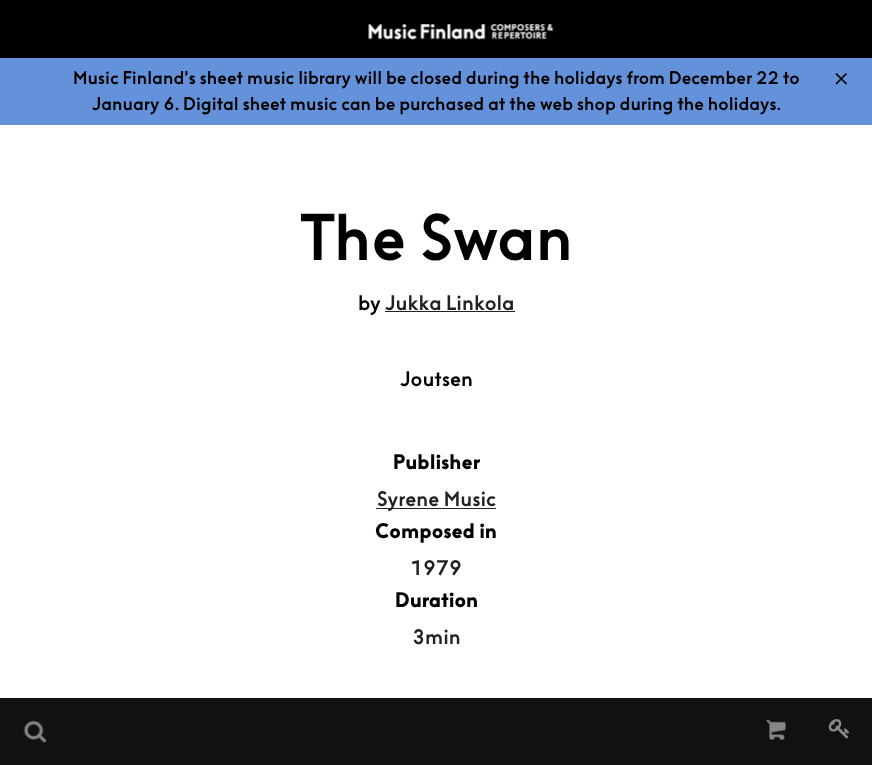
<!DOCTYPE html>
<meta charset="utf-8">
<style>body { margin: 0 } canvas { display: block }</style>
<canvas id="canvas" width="872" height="765"></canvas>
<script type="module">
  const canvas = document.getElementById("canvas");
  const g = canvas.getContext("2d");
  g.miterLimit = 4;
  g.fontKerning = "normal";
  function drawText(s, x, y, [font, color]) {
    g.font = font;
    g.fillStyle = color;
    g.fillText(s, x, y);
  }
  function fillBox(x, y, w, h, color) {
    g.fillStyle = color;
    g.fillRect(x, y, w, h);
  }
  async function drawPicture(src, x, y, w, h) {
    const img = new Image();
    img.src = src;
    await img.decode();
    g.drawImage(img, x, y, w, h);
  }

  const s1 = ["500 17.5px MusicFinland", "#000000"];
  const s2 = ["500 62.5px MusicFinland", "#000000"];
  const s3 = ["500 20px MusicFinland", "#000000"];
  const s4 = ["500 20px MusicFinland", "#222222"];
  const s5 = ["bold 20px MusicFinland", "#000000"];

  fillBox(0, 0, 872, 765, "#FFFFFF");
  fillBox(0, 0, 872, 58, "#000000");
  await drawPicture("pic1.png", 368, 24, 186, 16);
  fillBox(0, 698, 872, 67, "#111111");
  await drawPicture("pic2.png", 23, 720, 24, 23);
  await drawPicture("pic3.png", 766, 720, 21, 20);
  await drawPicture("pic4.png", 828, 719, 22, 20);
  fillBox(0, 58, 872, 67, "#6492DA");
  drawText("Music Finland's sheet music library will be closed during the holidays from December 22 to", 73, 84, s1);
  await drawPicture("pic5.png", 835, 73, 12, 12);
  drawText("January 6. Digital sheet music can be purchased at the web shop during the holidays.", 92, 110, s1);
  drawText("The Swan", 300, 260, s2);
  drawText("by", 358, 310, s3);
  drawText("Jukka Linkola", 385, 310, s4);
  fillBox(385, 311, 130, 1, "#222222");
  drawText("Joutsen", 400, 386, s3);
  drawText("Publisher", 393, 469, s5);
  fillBox(376, 508, 120, 1, "#222222");
  drawText("Syrene Music", 377, 506, s4);
  drawText("Composed in", 375, 538, s5);
  drawText("1979", 410, 575, s4);
  drawText("Duration", 395, 607, s5);
  drawText("3min", 412, 644, s4);
</script>
